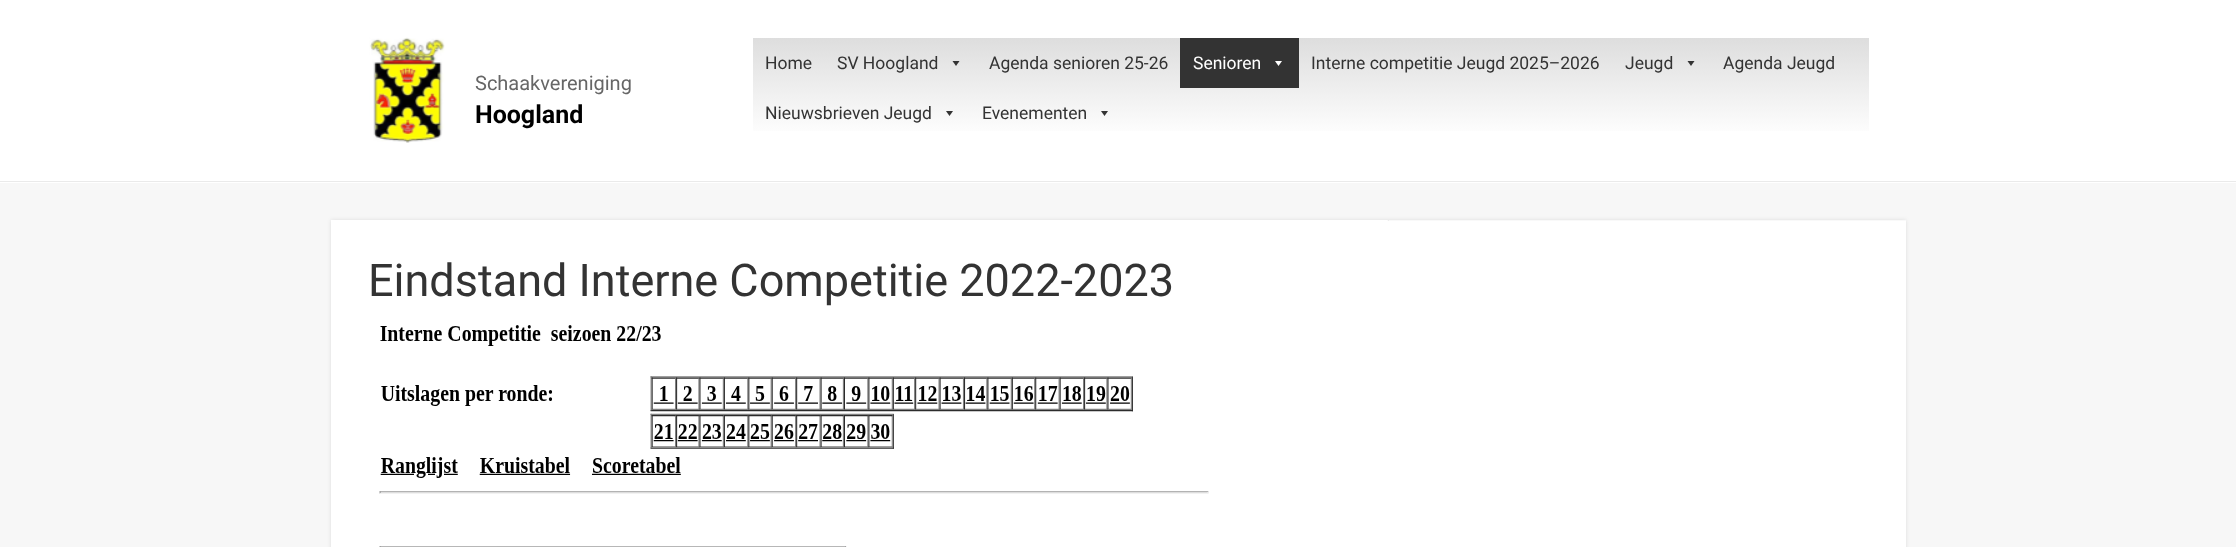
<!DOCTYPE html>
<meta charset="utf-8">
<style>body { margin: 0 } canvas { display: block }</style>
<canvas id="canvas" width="2236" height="547"></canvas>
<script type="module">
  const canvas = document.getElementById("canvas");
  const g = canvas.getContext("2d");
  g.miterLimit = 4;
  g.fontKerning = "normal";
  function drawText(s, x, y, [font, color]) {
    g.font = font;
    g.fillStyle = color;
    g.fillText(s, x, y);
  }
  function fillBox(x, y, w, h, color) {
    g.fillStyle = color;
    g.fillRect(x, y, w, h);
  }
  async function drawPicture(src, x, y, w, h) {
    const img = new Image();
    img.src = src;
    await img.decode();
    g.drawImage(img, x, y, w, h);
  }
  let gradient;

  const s1 = ["20px Roboto", "#666666"];
  const s2 = ["bold 25px Roboto", "#000000"];
  const s3 = ["17.5px Roboto", "#333333"];
  const s4 = ["17.5px Roboto", "#FFFFFF"];
  const s5 = ["45px Roboto", "#333333"];

  fillBox(0, 0, 2236, 547, "#F7F7F7");
  fillBox(0, 0, 2236, 183, "#FFFFFF");
  fillBox(0, 181, 2236, 1, "#EAEAEA");
  await drawPicture("pic1.png", 369, 37, 76, 106);
  drawText("Schaakvereniging", 475, 90, s1);
  drawText("Hoogland", 475, 123, s2);
  gradient = g.createLinearGradient(1311, 37, 1311, 138);
  gradient.addColorStop(0, "#DDDDDD");
  gradient.addColorStop(1, "#FFFFFF");
  g.fillStyle = gradient;
  g.fillRect(753, 38, 1116, 93);
  drawText("Home", 765, 69, s3);
  drawText("SV Hoogland", 837, 69, s3);
  g.beginPath();
  g.moveTo(959.5, 61);
  g.lineTo(956, 66);
  g.lineTo(952.5, 61);
  g.closePath();
  g.fill();
  drawText("Agenda senioren 25-26", 989, 69, s3);
  fillBox(1180, 38, 119, 50, "#333333");
  drawText("Senioren", 1193, 69, s4);
  g.beginPath();
  g.moveTo(1282, 61);
  g.lineTo(1278.5, 66);
  g.lineTo(1275, 61);
  g.closePath();
  g.fill();
  drawText("Interne competitie Jeugd 2025–2026", 1311, 69, s3);
  drawText("Jeugd", 1625, 69, s3);
  g.beginPath();
  g.moveTo(1694.5, 61);
  g.lineTo(1691, 66);
  g.lineTo(1687.5, 61);
  g.closePath();
  g.fill();
  drawText("Agenda Jeugd", 1723, 69, s3);
  drawText("Nieuwsbrieven Jeugd", 765, 119, s3);
  g.beginPath();
  g.moveTo(953, 111);
  g.lineTo(949.5, 116);
  g.lineTo(946, 111);
  g.closePath();
  g.fill();
  drawText("Evenementen", 982, 119, s3);
  g.beginPath();
  g.moveTo(1108, 111);
  g.lineTo(1104.5, 116);
  g.lineTo(1101, 111);
  g.closePath();
  g.fill();
  g.fillStyle = "rgba(0, 0, 0, 0.1)";
  g.filter = "blur(2px)";
  g.beginPath();
  g.rect(331, 220, 1575, 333);
  g.fill();
  g.filter = "none";
  fillBox(331, 220, 1575, 327, "#FFFFFF");
  fillBox(1388, 220, 518, 1, "#F9F9F9");
  fillBox(1387, 220, 1, 1, "#FBFBFB");
  fillBox(1388, 220, 1, 1, "#EDEDED");
  drawText("Eindstand Interne Competitie 2022-2023", 368, 296, s5);
  await drawPicture("pic2.png", 379, 325, 830, 222);
</script>
